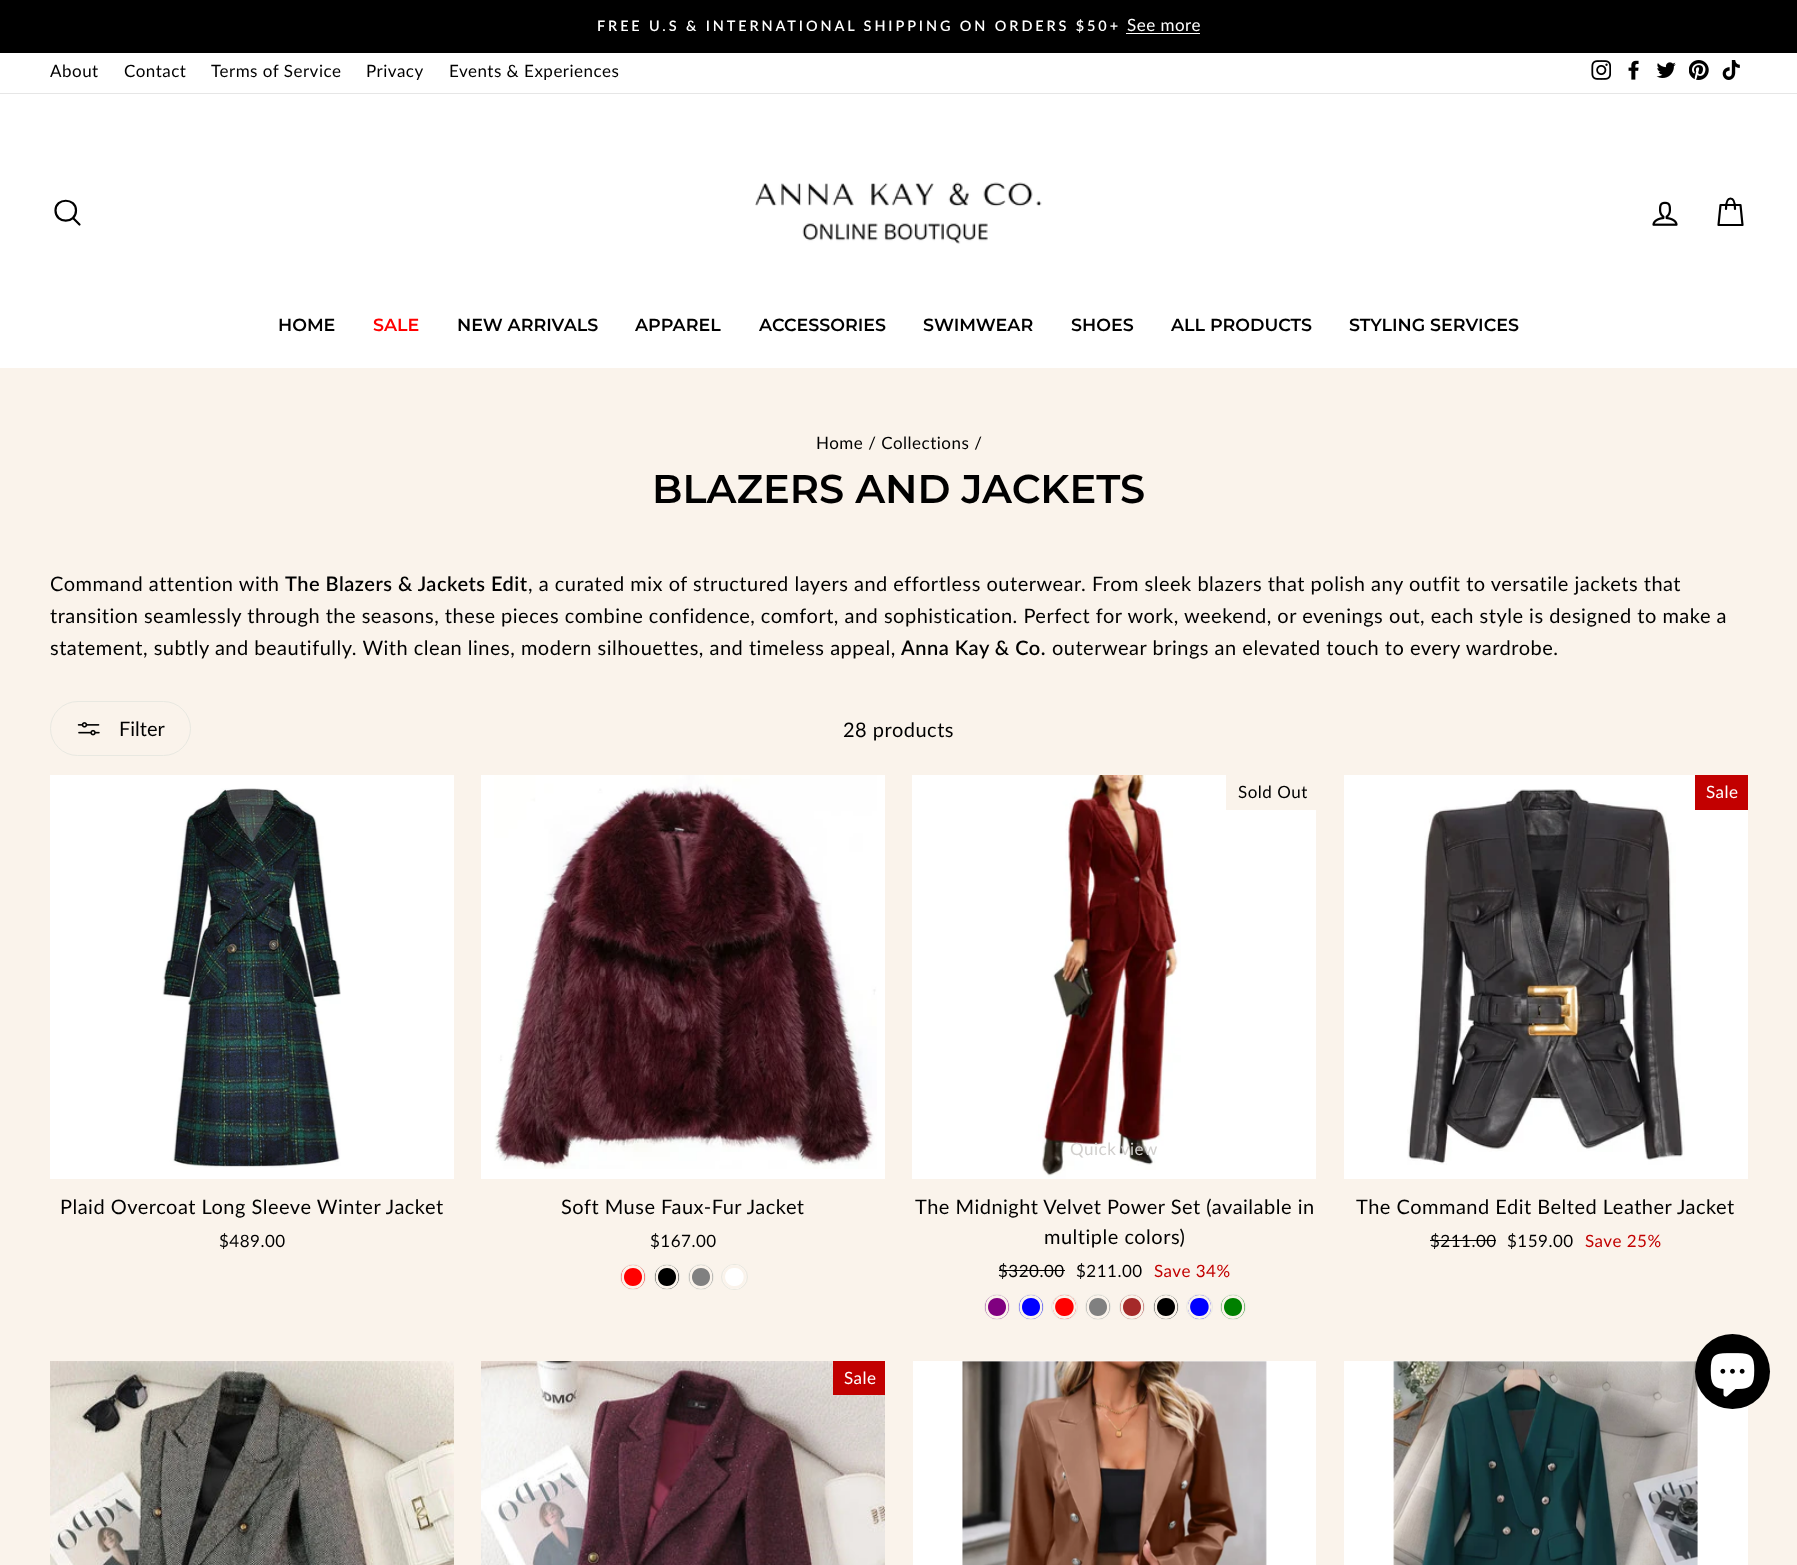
<!DOCTYPE html>
<meta charset="utf-8">
<style>body { margin: 0 } canvas { display: block }</style>
<canvas id="canvas" width="1797" height="1565"></canvas>
<script type="module">
  const canvas = document.getElementById("canvas");
  const g = canvas.getContext("2d");
  g.miterLimit = 4;
  g.fontKerning = "normal";
  function drawText(s, x, y, [font, color]) {
    g.font = font;
    g.fillStyle = color;
    g.fillText(s, x, y);
  }
  function fillBox(x, y, w, h, color) {
    g.fillStyle = color;
    g.fillRect(x, y, w, h);
  }
  function fillRounded(x, y, w, h, r, color) {
    g.fillStyle = color;
    g.beginPath();
    g.roundRect(x, y, w, h, r);
    g.fill();
  }
  async function drawPicture(src, x, y, w, h) {
    const img = new Image();
    img.src = src;
    await img.decode();
    g.drawImage(img, x, y, w, h);
  }

  const s1 = ["600 14.45px Lato", "#FFFFFF"];
  const s2 = ["17px Lato", "#FFFFFF"];
  const s3 = ["17px Lato", "#000000"];
  const s4 = ["600 17.5px Montserrat", "#000000"];
  const s5 = ["600 17.5px Montserrat", "#FF0000"];
  const s6 = ["600 40px Montserrat", "#000000"];
  const s7 = ["20px Lato", "#000000"];
  const s8 = ["600 20px Lato", "#000000"];
  const s9 = ["17px Lato", "#D1CFCD"];
  const s10 = ["17px Lato", "#C20000"];

  fillBox(0, 0, 1797, 1565, "#FAF3EB");
  fillBox(0, 0, 1797, 53, "#000000");
  g.letterSpacing = "2.9px";
  drawText("FREE U.S & INTERNATIONAL SHIPPING ON ORDERS $50+", 597, 31, s1);
  g.letterSpacing = "0.5px";
  drawText("See more", 1127, 31, s2);
  fillBox(1126, 33, 74, 1, "#FFFFFF");
  fillBox(0, 53, 1797, 40, "#FFFFFF");
  drawText("About", 50, 77, s3);
  drawText("Contact", 124, 77, s3);
  drawText("Terms of Service", 211, 77, s3);
  drawText("Privacy", 366, 77, s3);
  drawText("Events & Experiences", 449, 77, s3);
  await drawPicture("pic1.png", 1591, 60, 20, 20);
  await drawPicture("pic2.png", 1628, 60, 11, 20);
  await drawPicture("pic3.png", 1656, 62, 20, 16);
  await drawPicture("pic4.png", 1689, 60, 20, 20);
  await drawPicture("pic5.png", 1722, 60, 18, 20);
  fillBox(0, 94, 1797, 274, "#FFFFFF");
  fillBox(0, 93, 1797, 1, "#E6E6E6");
  g.beginPath();
  g.moveTo(76, 210.5);
  g.bezierCurveTo(76, 224, 55.5, 224, 55.5, 210.5);
  g.bezierCurveTo(55.5, 197.5, 76, 197.5, 76, 210.5);
  g.closePath();
  g.moveTo(79.5, 224.5);
  g.lineTo(73, 218);
  g.strokeStyle = "#000000";
  g.lineWidth = 2.2;
  g.lineCap = "round";
  g.lineJoin = "round";
  g.stroke();
  await drawPicture("pic6.png", 755, 182, 287, 62);
  await drawPicture("pic7.png", 1652, 201, 26, 25);
  g.beginPath();
  g.moveTo(1726, 209);
  g.bezierCurveTo(1726, 200.5, 1728, 198.5, 1730.5, 198.5);
  g.bezierCurveTo(1733, 198.5, 1735, 200.5, 1735, 209);
  g.moveTo(1720.5, 205);
  g.lineTo(1740.5, 205);
  g.lineTo(1742.5, 225);
  g.lineTo(1718.5, 225);
  g.closePath();
  g.stroke();
  g.letterSpacing = "0px";
  drawText("HOME", 278, 331, s4);
  drawText("SALE", 373, 331, s5);
  drawText("NEW ARRIVALS", 457, 331, s4);
  drawText("APPAREL", 635, 331, s4);
  drawText("ACCESSORIES", 759, 331, s4);
  drawText("SWIMWEAR", 923, 331, s4);
  drawText("SHOES", 1071, 331, s4);
  drawText("ALL PRODUCTS", 1171, 331, s4);
  drawText("STYLING SERVICES", 1349, 331, s4);
  g.letterSpacing = "0.5px";
  drawText("Home / Collections /", 816, 449, s3);
  g.letterSpacing = "0px";
  drawText("BLAZERS AND JACKETS", 652, 503, s6);
  g.letterSpacing = "0.5px";
  drawText("Command attention with", 50, 591, s7);
  drawText("The Blazers & Jackets Edit", 285, 591, s8);
  drawText(", a curated mix of structured layers and effortless outerwear. From sleek blazers that polish any outfit to versatile jackets that", 528, 591, s7);
  drawText("transition seamlessly through the seasons, these pieces combine confidence, comfort, and sophistication. Perfect for work, weekend, or evenings out, each style is designed to make a", 50, 623, s7);
  drawText("statement, subtly and beautifully. With clean lines, modern silhouettes, and timeless appeal,", 50, 655, s7);
  drawText("Anna Kay & Co.", 901, 655, s8);
  drawText("outerwear brings an elevated touch to every wardrobe.", 1052, 655, s7);
  g.beginPath();
  g.roundRect(50.5, 701.5, 140, 54, 27);
  g.strokeStyle = "#E8E8E1";
  g.lineWidth = 1;
  g.lineJoin = "miter";
  g.stroke();
  await drawPicture("pic8.png", 77, 722, 23, 14);
  g.letterSpacing = "0px";
  drawText("Filter", 119, 736, s7);
  g.letterSpacing = "0.5px";
  drawText("28 products", 843, 737, s7);
  fillBox(50, 775, 404, 404, "#FFFFFF");
  await drawPicture("pic9.png", 162, 788, 179, 380);
  drawText("Plaid Overcoat Long Sleeve Winter Jacket", 60, 1214, s7);
  drawText("$489.00", 219, 1247, s3);
  fillBox(481, 775, 404, 404, "#FFFFFF");
  await drawPicture("pic10.png", 494, 775, 383, 394);
  drawText("Soft Muse Faux-Fur Jacket", 561, 1214, s7);
  drawText("$167.00", 650, 1247, s3);
  g.beginPath();
  g.arc(633, 1277, 12.5, 0, Math.PI * 2);
  g.stroke();
  g.fillStyle = "#FF0000";
  g.beginPath();
  g.arc(633, 1277, 12, 0, Math.PI * 2);
  g.fill();
  g.beginPath();
  g.arc(667, 1277, 12.5, 0, Math.PI * 2);
  g.stroke();
  g.fillStyle = "#000000";
  g.beginPath();
  g.arc(667, 1277, 12, 0, Math.PI * 2);
  g.fill();
  g.fillStyle = "#FAF3EB";
  g.beginPath();
  g.moveTo(633, 1265);
  g.bezierCurveTo(617.5, 1265, 617.5, 1289, 633, 1289);
  g.bezierCurveTo(648.5, 1289, 648.5, 1265, 633, 1265);
  g.closePath();
  g.moveTo(633, 1268);
  g.bezierCurveTo(621, 1268, 621, 1286, 633, 1286);
  g.bezierCurveTo(645, 1286, 645, 1268, 633, 1268);
  g.closePath();
  g.moveTo(667, 1265);
  g.bezierCurveTo(651.5, 1265, 651.5, 1289, 667, 1289);
  g.bezierCurveTo(682.5, 1289, 682.5, 1265, 667, 1265);
  g.closePath();
  g.moveTo(667, 1268);
  g.bezierCurveTo(655, 1268, 655, 1286, 667, 1286);
  g.bezierCurveTo(679, 1286, 679, 1268, 667, 1268);
  g.closePath();
  g.fill("evenodd");
  g.beginPath();
  g.arc(701, 1277, 12.5, 0, Math.PI * 2);
  g.stroke();
  g.fillStyle = "#808080";
  g.beginPath();
  g.arc(701, 1277, 12, 0, Math.PI * 2);
  g.fill();
  g.beginPath();
  g.roundRect(721.5, 1264.5, 26, 25, 12.5);
  g.stroke();
  fillRounded(723, 1265, 23, 24, 11.5, "#FFFFFF");
  g.fillStyle = "#FAF3EB";
  g.beginPath();
  g.moveTo(701, 1265);
  g.bezierCurveTo(685.5, 1265, 685.5, 1289, 701, 1289);
  g.bezierCurveTo(716.5, 1289, 716.5, 1265, 701, 1265);
  g.closePath();
  g.moveTo(701, 1268);
  g.bezierCurveTo(689, 1268, 689, 1286, 701, 1286);
  g.bezierCurveTo(713, 1286, 713, 1268, 701, 1268);
  g.closePath();
  g.moveTo(734.5, 1265);
  g.bezierCurveTo(719, 1265, 719, 1289, 734.5, 1289);
  g.bezierCurveTo(750, 1289, 750, 1265, 734.5, 1265);
  g.closePath();
  g.moveTo(734, 1268);
  g.bezierCurveTo(722.5, 1268, 722, 1285, 734, 1286);
  g.bezierCurveTo(746.5, 1287, 747, 1268, 735, 1268);
  g.closePath();
  g.fill("evenodd");
  fillBox(1181, 775, 135, 404, "#FFFFFF");
  fillBox(1226, 775, 90, 35, "#FAF3EB");
  drawText("Sold Out", 1238, 798, s3);
  await drawPicture("pic11.png", 912, 775, 269, 404);
  drawText("Quick view", 1070, 1155, s9);
  drawText("The Midnight Velvet Power Set (available in", 915, 1214, s7);
  drawText("multiple colors)", 1044, 1244, s7);
  drawText("$320.00", 998, 1277, s3);
  fillBox(999, 1270, 66, 1, "#000000");
  drawText("$211.00", 1076, 1277, s3);
  drawText("Save 34%", 1154, 1277, s10);
  g.beginPath();
  g.arc(997, 1307, 12.5, 0, Math.PI * 2);
  g.stroke();
  g.fillStyle = "#800080";
  g.beginPath();
  g.arc(997, 1307, 12, 0, Math.PI * 2);
  g.fill();
  g.beginPath();
  g.arc(1031, 1307, 12.5, 0, Math.PI * 2);
  g.stroke();
  g.fillStyle = "#0000FF";
  g.beginPath();
  g.arc(1031, 1307, 12, 0, Math.PI * 2);
  g.fill();
  g.fillStyle = "#FAF3EB";
  g.beginPath();
  g.moveTo(997, 1295);
  g.bezierCurveTo(981.5, 1295, 981.5, 1319, 997, 1319);
  g.bezierCurveTo(1012.5, 1319, 1012.5, 1295, 997, 1295);
  g.closePath();
  g.moveTo(997, 1298);
  g.bezierCurveTo(985, 1298, 985, 1316, 997, 1316);
  g.bezierCurveTo(1009, 1316, 1009, 1298, 997, 1298);
  g.closePath();
  g.moveTo(1031, 1295);
  g.bezierCurveTo(1015.5, 1295, 1015.5, 1319, 1031, 1319);
  g.bezierCurveTo(1046.5, 1319, 1046.5, 1295, 1031, 1295);
  g.closePath();
  g.moveTo(1031, 1298);
  g.bezierCurveTo(1019, 1298, 1019, 1316, 1031, 1316);
  g.bezierCurveTo(1043, 1316, 1043, 1298, 1031, 1298);
  g.closePath();
  g.fill("evenodd");
  g.beginPath();
  g.roundRect(1051.5, 1294.5, 26, 25, 12.5);
  g.stroke();
  fillRounded(1053, 1295, 23, 24, 11.5, "#FF0000");
  g.beginPath();
  g.arc(1098, 1307, 12.5, 0, Math.PI * 2);
  g.stroke();
  g.fillStyle = "#808080";
  g.beginPath();
  g.arc(1098, 1307, 12, 0, Math.PI * 2);
  g.fill();
  g.fillStyle = "#FAF3EB";
  g.beginPath();
  g.moveTo(1064.5, 1295);
  g.bezierCurveTo(1049, 1295, 1049, 1319, 1064.5, 1319);
  g.bezierCurveTo(1080, 1319, 1080, 1295, 1064.5, 1295);
  g.closePath();
  g.moveTo(1064, 1298);
  g.bezierCurveTo(1052.5, 1298, 1052, 1315, 1064, 1316);
  g.bezierCurveTo(1076.5, 1317, 1077, 1298, 1065, 1298);
  g.closePath();
  g.moveTo(1098, 1295);
  g.bezierCurveTo(1082.5, 1295, 1082.5, 1319, 1098, 1319);
  g.bezierCurveTo(1113.5, 1319, 1113.5, 1295, 1098, 1295);
  g.closePath();
  g.moveTo(1098, 1298);
  g.bezierCurveTo(1086, 1298, 1086, 1316, 1098, 1316);
  g.bezierCurveTo(1110, 1316, 1110, 1298, 1098, 1298);
  g.closePath();
  g.fill("evenodd");
  g.beginPath();
  g.arc(1132, 1307, 12.5, 0, Math.PI * 2);
  g.stroke();
  g.fillStyle = "#A52A2A";
  g.beginPath();
  g.arc(1132, 1307, 12, 0, Math.PI * 2);
  g.fill();
  g.beginPath();
  g.arc(1166, 1307, 12.5, 0, Math.PI * 2);
  g.stroke();
  g.fillStyle = "#000000";
  g.beginPath();
  g.arc(1166, 1307, 12, 0, Math.PI * 2);
  g.fill();
  g.fillStyle = "#FAF3EB";
  g.beginPath();
  g.moveTo(1132, 1295);
  g.bezierCurveTo(1116.5, 1295, 1116.5, 1319, 1132, 1319);
  g.bezierCurveTo(1147.5, 1319, 1147.5, 1295, 1132, 1295);
  g.closePath();
  g.moveTo(1132, 1298);
  g.bezierCurveTo(1120, 1298, 1120, 1316, 1132, 1316);
  g.bezierCurveTo(1144, 1316, 1144, 1298, 1132, 1298);
  g.closePath();
  g.moveTo(1166, 1295);
  g.bezierCurveTo(1150.5, 1295, 1150.5, 1319, 1166, 1319);
  g.bezierCurveTo(1181.5, 1319, 1181.5, 1295, 1166, 1295);
  g.closePath();
  g.moveTo(1166, 1298);
  g.bezierCurveTo(1154, 1298, 1154, 1316, 1166, 1316);
  g.bezierCurveTo(1178, 1316, 1178, 1298, 1166, 1298);
  g.closePath();
  g.fill("evenodd");
  g.beginPath();
  g.roundRect(1186.5, 1294.5, 26, 25, 12.5);
  g.stroke();
  fillRounded(1188, 1295, 23, 24, 11.5, "#0000FF");
  g.beginPath();
  g.arc(1233, 1307, 12.5, 0, Math.PI * 2);
  g.stroke();
  g.fillStyle = "#008000";
  g.beginPath();
  g.arc(1233, 1307, 12, 0, Math.PI * 2);
  g.fill();
  g.fillStyle = "#FAF3EB";
  g.beginPath();
  g.moveTo(1199.5, 1295);
  g.bezierCurveTo(1184, 1295, 1184, 1319, 1199.5, 1319);
  g.bezierCurveTo(1215, 1319, 1215, 1295, 1199.5, 1295);
  g.closePath();
  g.moveTo(1199, 1298);
  g.bezierCurveTo(1187.5, 1298, 1187, 1315, 1199, 1316);
  g.bezierCurveTo(1211.5, 1317, 1212, 1298, 1200, 1298);
  g.closePath();
  g.moveTo(1233, 1295);
  g.bezierCurveTo(1217.5, 1295, 1217.5, 1319, 1233, 1319);
  g.bezierCurveTo(1248.5, 1319, 1248.5, 1295, 1233, 1295);
  g.closePath();
  g.moveTo(1233, 1298);
  g.bezierCurveTo(1221, 1298, 1221, 1316, 1233, 1316);
  g.bezierCurveTo(1245, 1316, 1245, 1298, 1233, 1298);
  g.closePath();
  g.fill("evenodd");
  fillBox(1344, 775, 404, 404, "#FFFFFF");
  fillBox(1695, 775, 53, 35, "#C20000");
  drawText("Sale", 1706, 798, s2);
  await drawPicture("pic12.png", 1407, 789, 278, 376);
  drawText("The Command Edit Belted Leather Jacket", 1356, 1214, s7);
  drawText("$211.00", 1430, 1247, s3);
  fillBox(1430, 1240, 66, 1, "#000000");
  drawText("$159.00", 1507, 1247, s3);
  drawText("Save 25%", 1585, 1247, s10);
  await drawPicture("pic13.png", 50, 1361, 404, 204);
  await drawPicture("pic14.png", 481, 1361, 404, 204);
  fillBox(833, 1361, 52, 34, "#C20000");
  drawText("Sale", 844, 1384, s2);
  fillBox(913, 1361, 403, 204, "#FFFFFF");
  await drawPicture("pic15.png", 962, 1361, 305, 204);
  fillBox(1344, 1361, 404, 204, "#FFFFFF");
  await drawPicture("pic16.png", 1393, 1361, 305, 204);
  g.fillStyle = "#000000";
  g.beginPath();
  g.arc(1732.5, 1371.5, 37.5, 0, Math.PI * 2);
  g.fill();
  await drawPicture("pic17.png", 1710, 1353, 45, 44);
</script>
